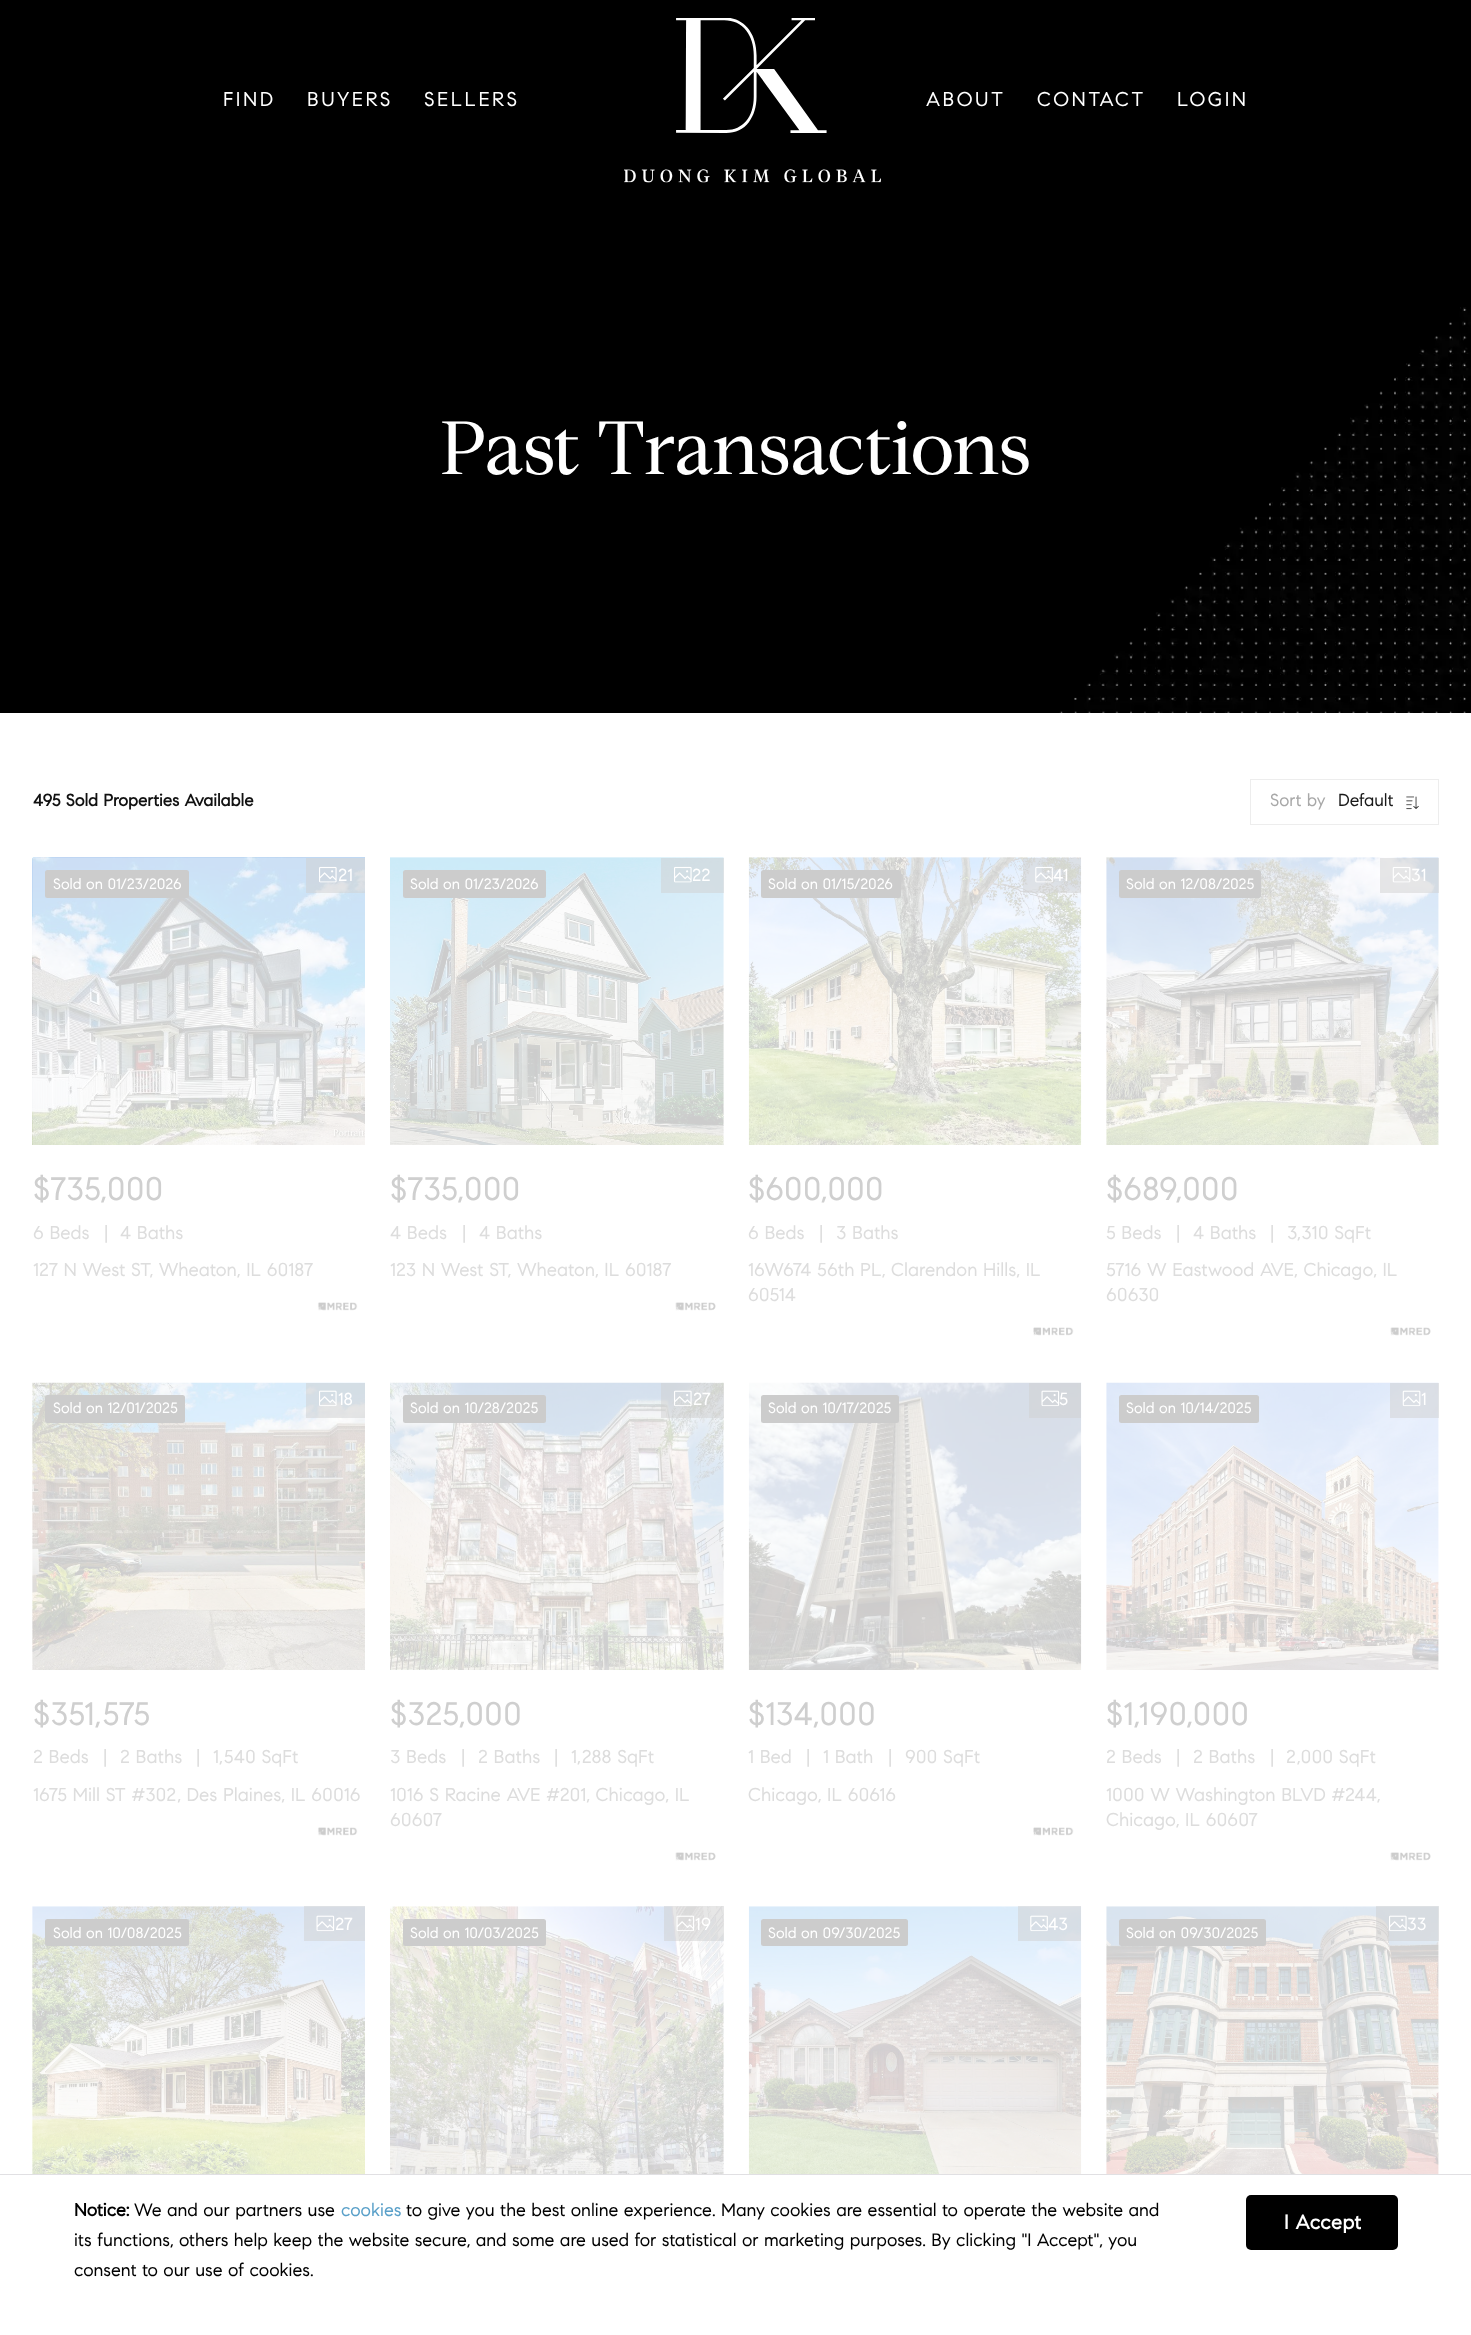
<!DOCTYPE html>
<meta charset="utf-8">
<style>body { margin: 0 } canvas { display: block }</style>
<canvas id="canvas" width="1471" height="2335"></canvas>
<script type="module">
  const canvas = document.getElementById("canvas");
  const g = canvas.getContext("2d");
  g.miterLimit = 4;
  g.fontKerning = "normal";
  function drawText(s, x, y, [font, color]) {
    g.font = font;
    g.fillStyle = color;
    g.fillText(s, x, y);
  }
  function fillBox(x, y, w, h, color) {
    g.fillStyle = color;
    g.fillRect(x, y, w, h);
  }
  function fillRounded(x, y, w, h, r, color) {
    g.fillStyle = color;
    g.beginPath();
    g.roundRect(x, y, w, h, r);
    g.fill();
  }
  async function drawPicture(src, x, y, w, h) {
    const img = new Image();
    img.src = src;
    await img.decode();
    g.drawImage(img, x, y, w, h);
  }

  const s1 = ["20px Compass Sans", "#FFFFFF"];
  const s2 = ["75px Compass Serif", "#FFFFFF"];
  const s3 = ["bold 17px Compass Sans", "#111111"];
  const s4 = ["17.5px Compass Sans", "#A8A8A8"];
  const s5 = ["17.5px Compass Sans", "#191919"];
  const s6 = ["17.5px Compass Sans", "#FFFFFF"];
  const s7 = ["15px Compass Sans", "#FFFFFF"];
  const s8 = ["32.5px Compass Sans", "#CFCFCF"];
  const s9 = ["18.75px Compass Sans", "#DDDDDD"];
  const s10 = ["bold 18px Compass Sans", "#000000"];
  const s11 = ["18px Compass Sans", "#000000"];
  const s12 = ["18px Compass Sans", "#5AA0C9"];
  const s13 = ["bold 20px Compass Sans", "#FFFFFF"];

  fillBox(0, 0, 1471, 2335, "#FFFFFF");
  fillBox(0, 0, 1471, 713, "#000000");
  await drawPicture("pic1.png", 624, 18, 257, 165);
  g.letterSpacing = "2.5px";
  drawText("FIND", 223, 106, s1);
  drawText("BUYERS", 307, 106, s1);
  drawText("SELLERS", 424, 106, s1);
  drawText("ABOUT", 926, 106, s1);
  drawText("CONTACT", 1037, 106, s1);
  drawText("LOGIN", 1177, 106, s1);
  await drawPicture("pic2.png", 1059, 307, 412, 406);
  g.letterSpacing = "0px";
  drawText("Past Transactions", 440, 474, s2);
  drawText("495 Sold Properties Available", 33, 806, s3);
  g.strokeStyle = "#EDEDED";
  g.strokeRect(1250.5, 779.5, 188, 45);
  drawText("Sort by", 1270, 806, s4);
  drawText("Default", 1338, 806, s5);
  await drawPicture("pic3.png", 1406, 796, 13, 14);
  await drawPicture("pic4.png", 32, 857, 333, 288);
  fillBox(306, 858, 59, 35, "rgba(207, 207, 207, 0.5)");
  await drawPicture("pic5.png", 319, 866, 18, 17);
  drawText("21", 338, 881, s6);
  fillRounded(45, 870, 144, 28, 2.5, "#CCCCCC");
  drawText("Sold on 01/23/2026", 53, 889, s7);
  drawText("$735,000", 33, 1200, s8);
  drawText("6 Beds", 33, 1239, s9);
  drawText("|", 104, 1239, s9);
  drawText("4 Baths", 120, 1239, s9);
  drawText("127 N West ST, Wheaton, IL 60187", 33, 1276, s9);
  await drawPicture("pic6.png", 317, 1302, 41, 9);
  await drawPicture("pic7.png", 390, 857, 334, 288);
  fillBox(661, 858, 63, 35, "rgba(207, 207, 207, 0.5)");
  await drawPicture("pic8.png", 674, 866, 18, 17);
  drawText("22", 692, 881, s6);
  fillRounded(403, 870, 143, 28, 2.5, "#CCCCCC");
  drawText("Sold on 01/23/2026", 410, 889, s7);
  drawText("$735,000", 390, 1200, s8);
  drawText("4 Beds", 390, 1239, s9);
  drawText("|", 462, 1239, s9);
  drawText("4 Baths", 479, 1239, s9);
  drawText("123 N West ST, Wheaton, IL 60187", 390, 1276, s9);
  await drawPicture("pic9.png", 675, 1302, 41, 9);
  await drawPicture("pic10.png", 748, 857, 334, 288);
  fillBox(1023, 858, 58, 35, "rgba(207, 207, 207, 0.5)");
  await drawPicture("pic11.png", 1035, 866, 18, 17);
  drawText("41", 1053, 881, s6);
  fillRounded(761, 870, 140, 28, 2.5, "#CCCCCC");
  drawText("Sold on 01/15/2026", 768, 889, s7);
  drawText("$600,000", 748, 1200, s8);
  drawText("6 Beds", 748, 1239, s9);
  drawText("|", 819, 1239, s9);
  drawText("3 Baths", 836, 1239, s9);
  drawText("16W674 56th PL, Clarendon Hills, IL", 748, 1276, s9);
  drawText("60514", 748, 1301, s9);
  await drawPicture("pic12.png", 1033, 1327, 41, 9);
  await drawPicture("pic13.png", 1106, 857, 333, 288);
  fillBox(1380, 858, 59, 35, "rgba(207, 207, 207, 0.5)");
  await drawPicture("pic14.png", 1392, 866, 19, 17);
  drawText("31", 1411, 881, s6);
  fillRounded(1119, 870, 142, 28, 2.5, "#CCCCCC");
  drawText("Sold on 12/08/2025", 1126, 889, s7);
  drawText("$689,000", 1106, 1200, s8);
  drawText("5 Beds", 1106, 1239, s9);
  drawText("|", 1176, 1239, s9);
  drawText("4 Baths", 1193, 1239, s9);
  drawText("|", 1270, 1239, s9);
  drawText("3,310 SqFt", 1287, 1239, s9);
  drawText("5716 W Eastwood AVE, Chicago, IL", 1106, 1276, s9);
  drawText("60630", 1106, 1301, s9);
  await drawPicture("pic15.png", 1390, 1327, 41, 9);
  await drawPicture("pic16.png", 32, 1382, 333, 288);
  fillBox(306, 1383, 59, 35, "rgba(207, 207, 207, 0.5)");
  await drawPicture("pic17.png", 319, 1390, 18, 17);
  drawText("18", 338, 1405, s6);
  fillRounded(45, 1395, 140, 28, 2.5, "#CCCCCC");
  drawText("Sold on 12/01/2025", 53, 1413, s7);
  drawText("$351,575", 33, 1725, s8);
  drawText("2 Beds", 33, 1763, s9);
  drawText("|", 103, 1763, s9);
  drawText("2 Baths", 120, 1763, s9);
  drawText("|", 196, 1763, s9);
  drawText("1,540 SqFt", 213, 1763, s9);
  drawText("1675 Mill ST #302, Des Plaines, IL 60016", 33, 1801, s9);
  await drawPicture("pic6.png", 317, 1827, 41, 9);
  await drawPicture("pic18.png", 390, 1382, 334, 288);
  fillBox(661, 1383, 63, 35, "rgba(207, 207, 207, 0.5)");
  await drawPicture("pic19.png", 674, 1390, 18, 17);
  drawText("27", 693, 1405, s6);
  fillRounded(403, 1395, 143, 28, 2.5, "#CCCCCC");
  drawText("Sold on 10/28/2025", 410, 1413, s7);
  drawText("$325,000", 390, 1725, s8);
  drawText("3 Beds", 390, 1763, s9);
  drawText("|", 461, 1763, s9);
  drawText("2 Baths", 478, 1763, s9);
  drawText("|", 554, 1763, s9);
  drawText("1,288 SqFt", 571, 1763, s9);
  drawText("1016 S Racine AVE #201, Chicago, IL", 390, 1801, s9);
  drawText("60607", 390, 1826, s9);
  await drawPicture("pic9.png", 675, 1852, 41, 9);
  await drawPicture("pic20.png", 748, 1382, 334, 288);
  fillBox(1029, 1383, 52, 35, "rgba(207, 207, 207, 0.5)");
  await drawPicture("pic21.png", 1041, 1390, 19, 17);
  drawText("5", 1059, 1405, s6);
  fillRounded(761, 1395, 138, 28, 2.5, "#CCCCCC");
  drawText("Sold on 10/17/2025", 768, 1413, s7);
  drawText("$134,000", 748, 1725, s8);
  drawText("1 Bed", 748, 1763, s9);
  drawText("|", 806, 1763, s9);
  drawText("1 Bath", 823, 1763, s9);
  drawText("|", 888, 1763, s9);
  drawText("900 SqFt", 905, 1763, s9);
  drawText("Chicago, IL 60616", 748, 1801, s9);
  await drawPicture("pic12.png", 1033, 1827, 41, 9);
  await drawPicture("pic22.png", 1106, 1382, 333, 288);
  fillBox(1390, 1383, 49, 35, "rgba(207, 207, 207, 0.5)");
  await drawPicture("pic23.png", 1402, 1390, 19, 17);
  drawText("1", 1421, 1405, s6);
  fillRounded(1119, 1395, 140, 28, 2.5, "#CCCCCC");
  drawText("Sold on 10/14/2025", 1126, 1413, s7);
  drawText("$1,190,000", 1106, 1725, s8);
  drawText("2 Beds", 1106, 1763, s9);
  drawText("|", 1176, 1763, s9);
  drawText("2 Baths", 1193, 1763, s9);
  drawText("|", 1270, 1763, s9);
  drawText("2,000 SqFt", 1286, 1763, s9);
  drawText("1000 W Washington BLVD #244,", 1106, 1801, s9);
  drawText("Chicago, IL 60607", 1106, 1826, s9);
  await drawPicture("pic15.png", 1390, 1852, 41, 9);
  await drawPicture("pic24.png", 32, 1906, 333, 268);
  fillBox(304, 1906, 61, 35, "rgba(207, 207, 207, 0.5)");
  await drawPicture("pic25.png", 316, 1915, 19, 17);
  drawText("27", 335, 1930, s6);
  fillRounded(45, 1919, 144, 27, 2.5, "#CCCCCC");
  drawText("Sold on 10/08/2025", 53, 1938, s7);
  await drawPicture("pic26.png", 390, 1906, 334, 268);
  fillBox(664, 1906, 60, 35, "rgba(207, 207, 207, 0.5)");
  await drawPicture("pic27.png", 676, 1915, 19, 17);
  drawText("19", 695, 1930, s6);
  fillRounded(403, 1919, 143, 27, 2.5, "#CCCCCC");
  drawText("Sold on 10/03/2025", 410, 1938, s7);
  await drawPicture("pic28.png", 748, 1906, 334, 268);
  fillBox(1018, 1906, 63, 35, "rgba(207, 207, 207, 0.5)");
  await drawPicture("pic29.png", 1030, 1915, 18, 17);
  drawText("43", 1048, 1930, s6);
  fillRounded(761, 1919, 147, 27, 2.5, "#CCCCCC");
  drawText("Sold on 09/30/2025", 768, 1938, s7);
  await drawPicture("pic30.png", 1106, 1906, 333, 268);
  fillBox(1376, 1906, 63, 35, "rgba(207, 207, 207, 0.5)");
  await drawPicture("pic31.png", 1389, 1915, 18, 17);
  drawText("33", 1407, 1930, s6);
  fillRounded(1119, 1919, 147, 27, 2.5, "#CCCCCC");
  drawText("Sold on 09/30/2025", 1126, 1938, s7);
  fillBox(0, 2174, 1471, 1, "#E1E0E3");
  drawText("Notice:", 74, 2216, s10);
  drawText("We and our partners use", 134, 2216, s11);
  drawText("cookies", 341, 2216, s12);
  drawText("to give you the best online experience. Many cookies are essential to operate the website and", 406, 2216, s11);
  drawText("its functions, others help keep the website secure, and some are used for statistical or marketing purposes. By clicking \"I Accept\", you", 74, 2246, s11);
  drawText("consent to our use of cookies.", 74, 2276, s11);
  fillRounded(1246, 2195, 152, 55, 5, "#000000");
  g.letterSpacing = "0.5px";
  drawText("I Accept", 1284, 2229, s13);
</script>
